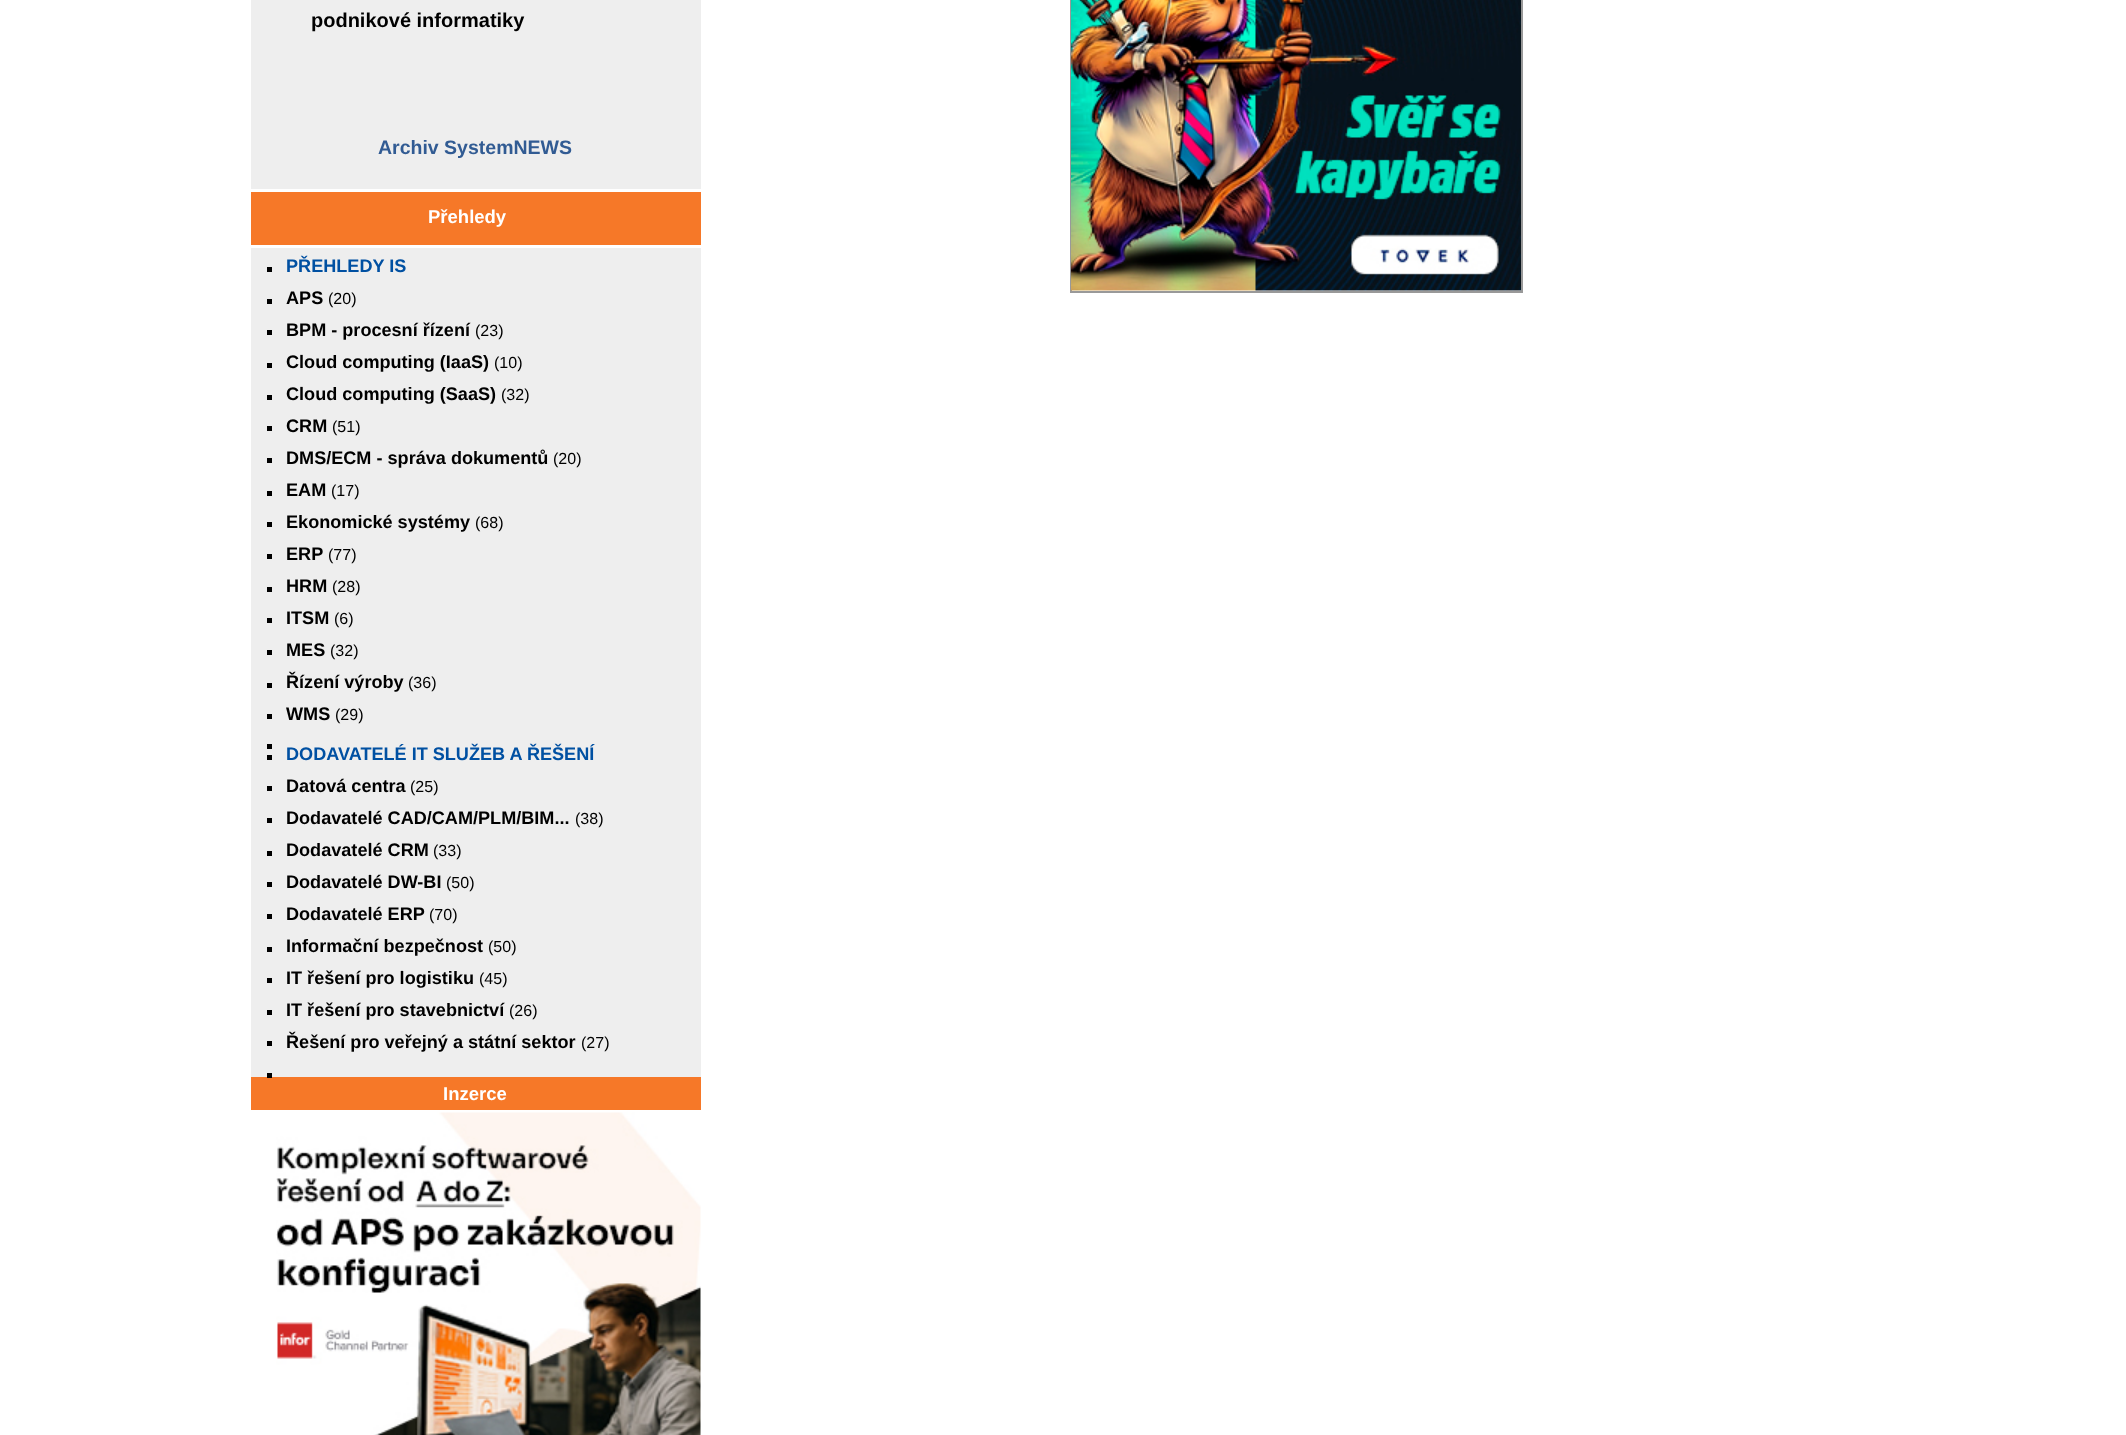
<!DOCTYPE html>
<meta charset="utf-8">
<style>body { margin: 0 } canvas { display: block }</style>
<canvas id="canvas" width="2126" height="1435"></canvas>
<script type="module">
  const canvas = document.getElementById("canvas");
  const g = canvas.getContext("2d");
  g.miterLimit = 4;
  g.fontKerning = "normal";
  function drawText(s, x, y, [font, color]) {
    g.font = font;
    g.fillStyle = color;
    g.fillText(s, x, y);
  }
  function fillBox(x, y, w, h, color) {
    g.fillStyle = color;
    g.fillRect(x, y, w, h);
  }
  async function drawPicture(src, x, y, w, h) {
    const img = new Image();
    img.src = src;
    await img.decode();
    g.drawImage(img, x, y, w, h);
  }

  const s1 = ["bold 20px Liberation Sans", "#000000"];
  const s2 = ["bold 19.5px Liberation Sans", "#315B93"];
  const s3 = ["bold 18.5px Liberation Sans", "#FFFFFF"];
  const s4 = ["bold 18.1px Liberation Sans", "#0050A2"];
  const s5 = ["bold 18.1px Liberation Sans", "#000000"];
  const s6 = ["16px Liberation Sans", "#000000"];

  fillBox(0, 0, 2126, 1435, "#FFFFFF");
  fillBox(251, 0, 450, 189, "#EEEEEE");
  drawText("podnikové informatiky", 311, 27, s1);
  drawText("Archiv SystemNEWS", 378, 154, s2);
  fillBox(251, 192, 450, 53, "#F67828");
  drawText("Přehledy", 428, 223, s3);
  fillBox(251, 248, 450, 829, "#EEEEEE");
  fillBox(267, 267, 5, 5, "#000000");
  drawText("PŘEHLEDY IS", 286, 272, s4);
  fillBox(267, 299, 5, 5, "#000000");
  drawText("APS", 286, 304, s5);
  drawText("(20)", 328, 304, s6);
  fillBox(267, 330, 5, 5, "#000000");
  drawText("BPM - procesní řízení", 286, 336, s5);
  drawText("(23)", 475, 336, s6);
  fillBox(267, 363, 5, 5, "#000000");
  drawText("Cloud computing (IaaS)", 286, 368, s5);
  drawText("(10)", 494, 368, s6);
  fillBox(267, 395, 5, 5, "#000000");
  drawText("Cloud computing (SaaS)", 286, 400, s5);
  drawText("(32)", 501, 400, s6);
  fillBox(267, 426, 5, 5, "#000000");
  drawText("CRM", 286, 432, s5);
  drawText("(51)", 332, 432, s6);
  fillBox(267, 458, 5, 5, "#000000");
  drawText("DMS/ECM - správa dokumentů", 286, 464, s5);
  drawText("(20)", 553, 464, s6);
  fillBox(267, 491, 5, 5, "#000000");
  drawText("EAM", 286, 496, s5);
  drawText("(17)", 331, 496, s6);
  fillBox(267, 522, 5, 5, "#000000");
  drawText("Ekonomické systémy", 286, 528, s5);
  drawText("(68)", 475, 528, s6);
  fillBox(267, 554, 5, 5, "#000000");
  drawText("ERP", 286, 560, s5);
  drawText("(77)", 328, 560, s6);
  fillBox(267, 587, 5, 5, "#000000");
  drawText("HRM", 286, 592, s5);
  drawText("(28)", 332, 592, s6);
  fillBox(267, 618, 5, 5, "#000000");
  drawText("ITSM", 286, 624, s5);
  drawText("(6)", 334, 624, s6);
  fillBox(267, 650, 5, 5, "#000000");
  drawText("MES", 286, 656, s5);
  drawText("(32)", 330, 656, s6);
  fillBox(267, 683, 5, 5, "#000000");
  drawText("Řízení výroby", 286, 688, s5);
  drawText("(36)", 408, 688, s6);
  fillBox(267, 714, 5, 5, "#000000");
  drawText("WMS", 286, 720, s5);
  drawText("(29)", 335, 720, s6);
  fillBox(267, 744, 5, 5, "#000000");
  fillBox(267, 755, 5, 5, "#000000");
  drawText("DODAVATELÉ IT SLUŽEB A ŘEŠENÍ", 286, 760, s4);
  fillBox(267, 786, 5, 5, "#000000");
  drawText("Datová centra", 286, 792, s5);
  drawText("(25)", 410, 792, s6);
  fillBox(267, 818, 5, 5, "#000000");
  drawText("Dodavatelé CAD/CAM/PLM/BIM...", 286, 824, s5);
  drawText("(38)", 575, 824, s6);
  fillBox(267, 851, 5, 5, "#000000");
  drawText("Dodavatelé CRM", 286, 856, s5);
  drawText("(33)", 433, 856, s6);
  fillBox(267, 882, 5, 5, "#000000");
  drawText("Dodavatelé DW-BI", 286, 888, s5);
  drawText("(50)", 446, 888, s6);
  fillBox(267, 914, 5, 5, "#000000");
  drawText("Dodavatelé ERP", 286, 920, s5);
  drawText("(70)", 429, 920, s6);
  fillBox(267, 947, 5, 5, "#000000");
  drawText("Informační bezpečnost", 286, 952, s5);
  drawText("(50)", 488, 952, s6);
  fillBox(267, 978, 5, 5, "#000000");
  drawText("IT řešení pro logistiku", 286, 984, s5);
  drawText("(45)", 479, 984, s6);
  fillBox(267, 1010, 5, 5, "#000000");
  drawText("IT řešení pro stavebnictví", 286, 1016, s5);
  drawText("(26)", 509, 1016, s6);
  fillBox(267, 1041, 5, 5, "#000000");
  drawText("Řešení pro veřejný a státní sektor", 286, 1048, s5);
  drawText("(27)", 581, 1048, s6);
  fillBox(251, 1077, 450, 33, "#F67828");
  fillBox(267, 1073, 5, 5, "#000000");
  drawText("Inzerce", 443, 1100, s3);
  await drawPicture("pic1.png", 276, 1112, 425, 323);
  g.strokeStyle = "#999999";
  g.lineWidth = 2;
  g.strokeRect(1071, -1, 451, 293);
  await drawPicture("pic2.png", 1071, 0, 450, 291);
</script>
